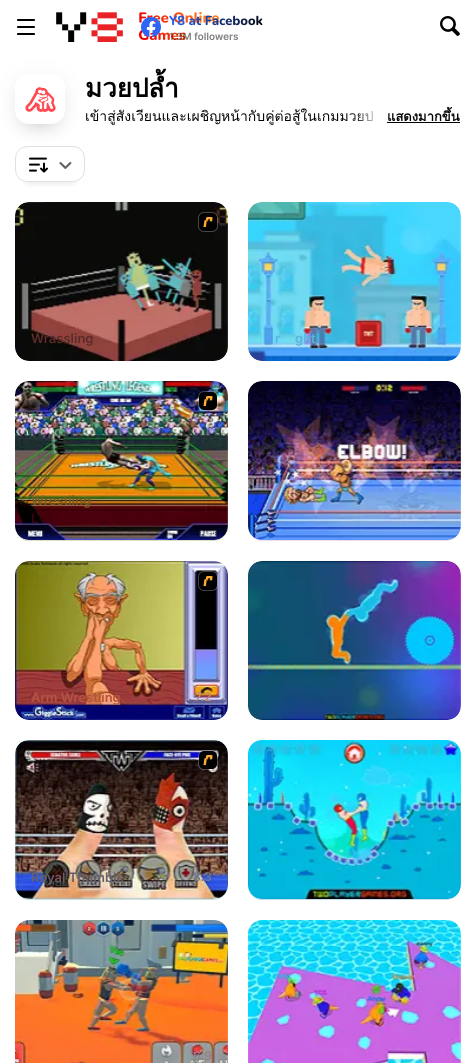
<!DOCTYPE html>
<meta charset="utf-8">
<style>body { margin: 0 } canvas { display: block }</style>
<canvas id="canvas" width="475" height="1063"></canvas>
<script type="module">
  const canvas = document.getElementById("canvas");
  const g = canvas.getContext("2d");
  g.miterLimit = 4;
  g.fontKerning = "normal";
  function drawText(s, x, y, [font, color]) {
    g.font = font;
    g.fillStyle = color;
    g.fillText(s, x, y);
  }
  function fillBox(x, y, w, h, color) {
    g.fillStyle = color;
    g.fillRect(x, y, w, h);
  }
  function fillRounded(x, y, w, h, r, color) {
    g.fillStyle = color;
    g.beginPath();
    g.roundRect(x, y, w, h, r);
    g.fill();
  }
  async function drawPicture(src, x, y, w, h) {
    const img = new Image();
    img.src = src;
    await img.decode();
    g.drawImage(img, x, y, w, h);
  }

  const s1 = ["bold 26px Loma", "#000000"];
  const s2 = ["14px Loma", "#000000"];
  const s3 = ["bold 13px Loma", "#000000"];
  const s4 = ["600 13px Inter", "#5B2C28"];
  const s5 = ["600 13px Inter", "#5DB3DB"];
  const s6 = ["600 13px Inter", "#745C21"];
  const s7 = ["600 13px Inter", "#3D020F"];
  const s8 = ["600 13px Inter", "#B35542"];
  const s9 = ["600 12px Inter", "#B88A6B"];
  const s10 = ["600 13px Inter", "#665F6A"];
  const s11 = ["600 12px Inter", "#727693"];
  const s12 = ["600 12px Inter", "#948387"];

  fillBox(0, 0, 475, 1063, "#FFFFFF");
  g.beginPath();
  g.moveTo(18, 20);
  g.lineTo(34, 20);
  g.moveTo(18, 27);
  g.lineTo(34, 27);
  g.moveTo(34, 34);
  g.lineTo(18, 34);
  g.strokeStyle = "#000000";
  g.lineWidth = 2.2;
  g.lineCap = "round";
  g.stroke();
  await drawPicture("pic1.png", 56, 12, 67, 30);
  await drawPicture("pic2.png", 139, 12, 80, 28);
  await drawPicture("pic3.png", 141, 15, 122, 26);
  await drawPicture("pic4.png", 440, 16, 20, 20);
  g.save();
  g.beginPath();
  g.rect(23, 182, 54, 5);
  g.clip();
  g.fillStyle = "rgba(0, 0, 0, 0.12)";
  g.filter = "blur(5px)";
  g.beginPath();
  g.roundRect(25, 166, 50, 16, 2);
  g.fill();
  g.filter = "none";
  g.restore();
  g.beginPath();
  g.roundRect(15.5, 146.5, 69, 35, 11.5);
  g.strokeStyle = "#E0E0E0";
  g.lineWidth = 1;
  g.stroke();
  g.fillStyle = "rgba(0, 0, 0, 0.2)";
  g.filter = "blur(10px)";
  g.beginPath();
  g.roundRect(25, 94, 30, 30, 4);
  g.fill();
  g.filter = "none";
  g.fillStyle = "rgba(0, 0, 0, 0.05)";
  g.filter = "blur(10px)";
  g.beginPath();
  g.roundRect(15, 76, 50, 50, 14);
  g.fill();
  g.filter = "none";
  fillRounded(15, 74, 50, 50, 14, "#FFFFFF");
  await drawPicture("pic5.png", 25, 87, 31, 25);
  drawText("มวยปล้ำ", 85, 97, s1);
  g.save();
  g.beginPath();
  g.rect(85, 106, 375, 20);
  g.clip();
  g.wordSpacing = "1px";
  drawText("เข้าสู่สังเวียนและเผชิญหน้ากับคู่ต่อสู้ในเกมมวยป", 85, 121, s2);
  g.restore();
  g.fillStyle = "#FFFFFF";
  g.filter = "blur(10px)";
  g.beginPath();
  g.rect(367, 85, 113, 62);
  g.fill();
  g.filter = "none";
  drawText("แสดงมากขึ้น", 387, 121, s3);
  fillBox(387, 122, 73, 1, "#000000");
  await drawPicture("pic6.png", 29, 157, 19, 16);
  await drawPicture("pic7.png", 59, 162, 13, 7);
  fillRounded(15, 202, 213, 159, 14, "#F0F5BF");
  await drawPicture("pic8.png", 15, 202, 213, 159);
  await drawPicture("pic9.png", 198, 212, 20, 20);
  drawText("Wrassling", 31, 343, s4);
  fillRounded(248, 202, 212, 159, 14, "#FBE0D9");
  await drawPicture("pic10.png", 248, 202, 213, 159);
  drawText("r", 275, 343, s5);
  drawText("ght", 295, 343, s5);
  fillRounded(15, 381, 213, 160, 14, "#DFE0BE");
  await drawPicture("pic11.png", 15, 381, 213, 159);
  await drawPicture("pic12.png", 198, 391, 20, 20);
  drawText("Wrestling", 31, 505, s6);
  drawText("L", 31, 523, s7);
  fillRounded(248, 381, 212, 160, 14, "#F1DFEF");
  await drawPicture("pic13.png", 248, 381, 213, 159);
  fillRounded(15, 561, 213, 159, 14, "#E5DADE");
  await drawPicture("pic14.png", 15, 561, 213, 159);
  await drawPicture("pic15.png", 198, 571, 20, 20);
  drawText("Arm Wrestling", 31, 702, s8);
  drawText("7.2", 195, 701, s9);
  fillRounded(248, 561, 212, 159, 14, "#FAEDCB");
  await drawPicture("pic16.png", 248, 561, 213, 159);
  fillRounded(15, 740, 213, 160, 14, "#C9E4DF");
  await drawPicture("pic17.png", 15, 740, 213, 159);
  await drawPicture("pic18.png", 198, 750, 20, 20);
  drawText("Royal Thumble", 31, 882, s10);
  drawText("8.3", 193, 881, s11);
  fillRounded(248, 740, 212, 160, 14, "#C5DEF2");
  await drawPicture("pic19.png", 248, 740, 213, 159);
  fillRounded(15, 920, 213, 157, 14, "#FFCAD4");
  await drawPicture("pic20.png", 15, 920, 213, 143);
  drawText("6.9", 193, 1060, s12);
  fillRounded(248, 920, 212, 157, 14, "#DBCDF0");
  await drawPicture("pic21.png", 248, 920, 213, 143);
</script>
